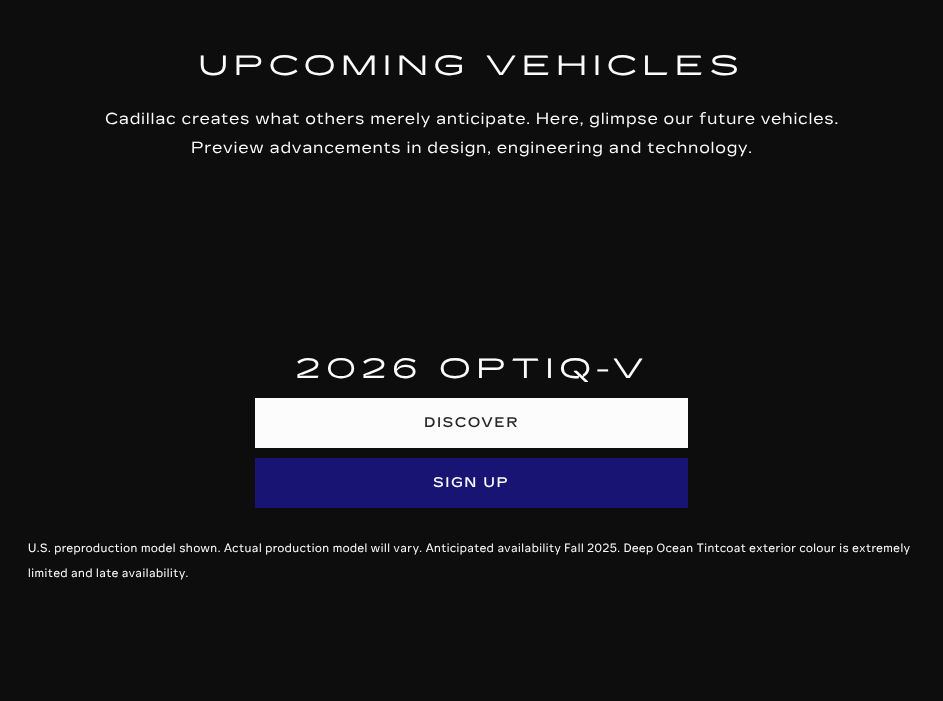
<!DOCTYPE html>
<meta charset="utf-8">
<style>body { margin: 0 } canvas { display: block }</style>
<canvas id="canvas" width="943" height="701"></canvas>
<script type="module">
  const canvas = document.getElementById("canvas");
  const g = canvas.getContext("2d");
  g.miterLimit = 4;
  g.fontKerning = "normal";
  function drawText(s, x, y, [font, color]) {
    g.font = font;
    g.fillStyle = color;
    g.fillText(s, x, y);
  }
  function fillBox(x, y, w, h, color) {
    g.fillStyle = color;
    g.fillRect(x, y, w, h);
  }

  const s1 = ["28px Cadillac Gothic", "#FCFCFC"];
  const s2 = ["16px 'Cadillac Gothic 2'", "#FCFCFC"];
  const s3 = ["500 14px Cadillac Gothic", "#282828"];
  const s4 = ["500 14px Cadillac Gothic", "#FCFCFC"];
  const s5 = ["12px 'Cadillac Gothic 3'", "#FCFCFC"];

  fillBox(0, 0, 943, 701, "#0D0D0D");
  g.letterSpacing = "5px";
  drawText("UPCOMING VEHICLES", 198, 75, s1);
  g.letterSpacing = "0.72px";
  drawText("Cadillac creates what others merely anticipate. Here, glimpse our future vehicles.", 105, 124, s2);
  drawText("Preview advancements in design, engineering and technology.", 191, 153, s2);
  g.letterSpacing = "5px";
  drawText("2026 OPTIQ-V", 295, 378, s1);
  fillBox(255, 398, 433, 50, "#FCFCFC");
  g.letterSpacing = "1.5px";
  drawText("DISCOVER", 424, 427, s3);
  fillBox(255, 458, 433, 50, "#171473");
  drawText("SIGN UP", 433, 487, s4);
  g.letterSpacing = "0.54px";
  drawText("U.S. preproduction model shown. Actual production model will vary. Anticipated availability Fall 2025. Deep Ocean Tintcoat exterior colour is extremely", 28, 552, s5);
  drawText("limited and late availability.", 28, 577, s5);
</script>
